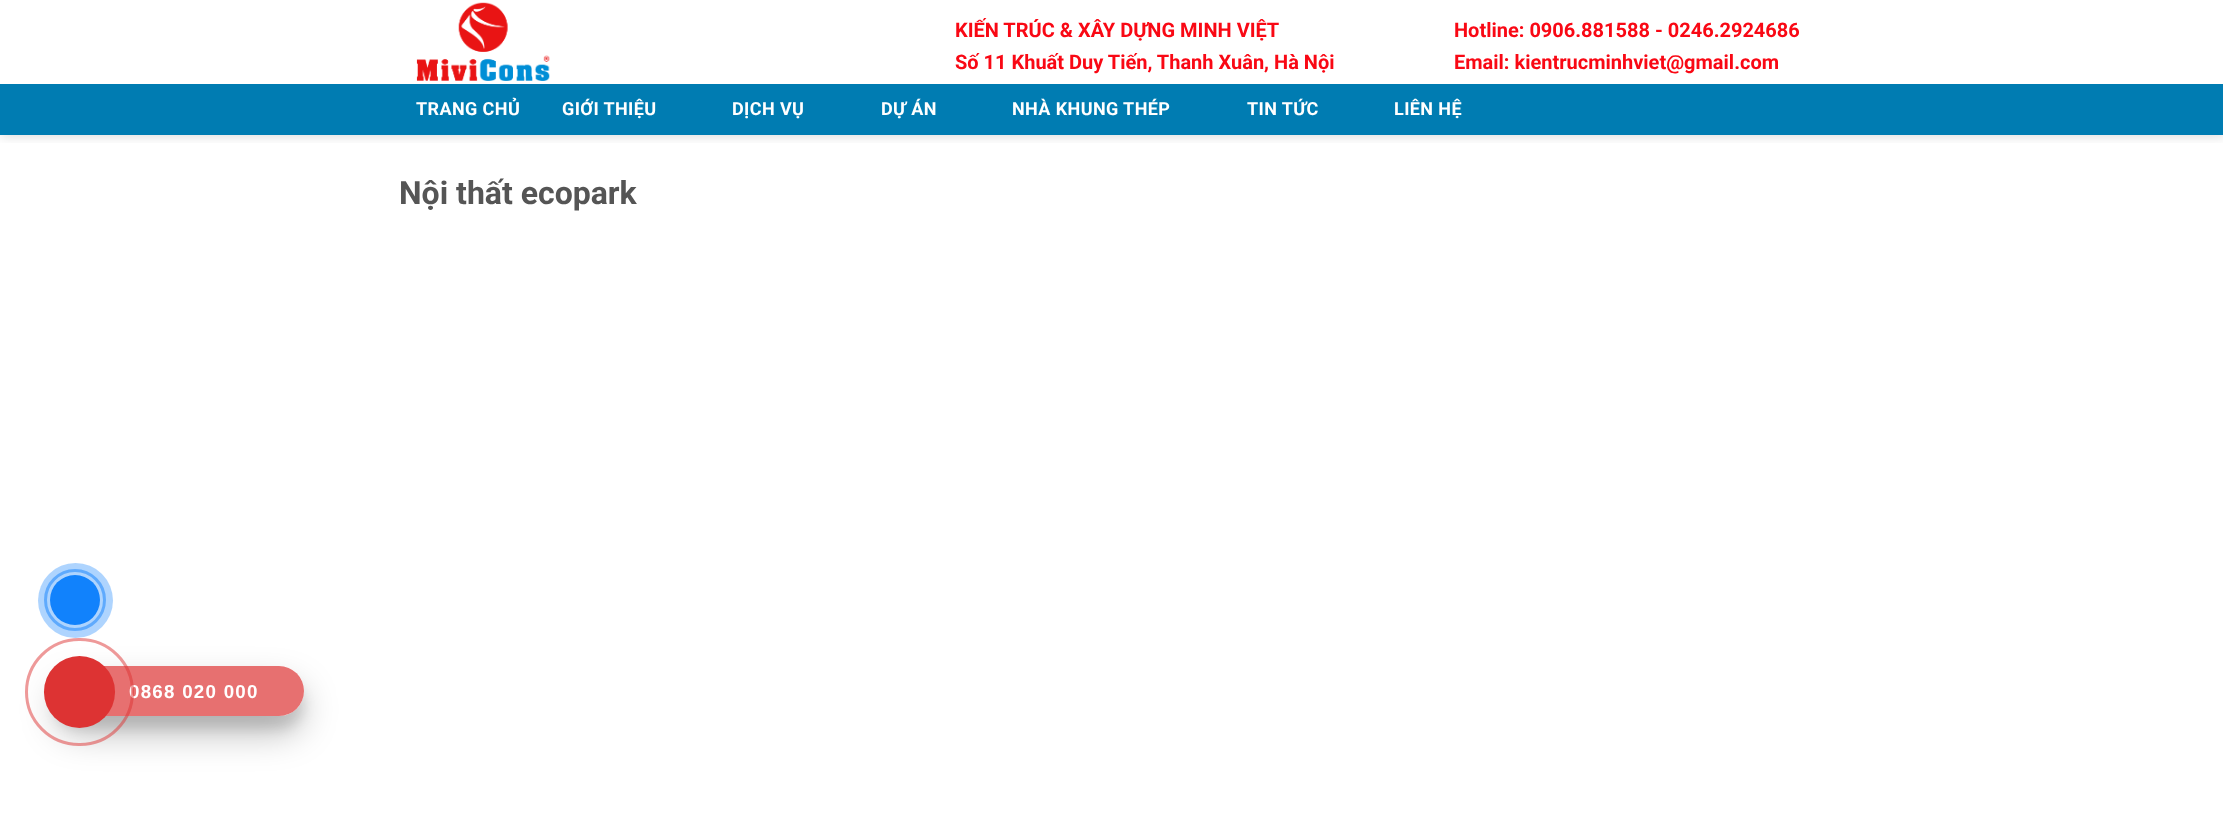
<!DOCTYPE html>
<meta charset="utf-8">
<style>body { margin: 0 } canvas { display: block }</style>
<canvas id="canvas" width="2223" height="824"></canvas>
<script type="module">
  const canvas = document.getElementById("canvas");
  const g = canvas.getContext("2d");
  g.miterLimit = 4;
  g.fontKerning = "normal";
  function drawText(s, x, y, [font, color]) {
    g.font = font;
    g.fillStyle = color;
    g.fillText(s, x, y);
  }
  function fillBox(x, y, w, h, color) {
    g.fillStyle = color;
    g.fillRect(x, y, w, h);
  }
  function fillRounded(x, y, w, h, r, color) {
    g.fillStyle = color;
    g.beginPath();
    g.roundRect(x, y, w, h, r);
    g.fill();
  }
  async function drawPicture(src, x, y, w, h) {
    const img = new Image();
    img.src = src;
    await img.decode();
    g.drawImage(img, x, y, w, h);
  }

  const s1 = ["bold 20px Roboto", "#F90814"];
  const s2 = ["bold 18px Roboto", "#FFFFFF"];
  const s3 = ["bold 32px Roboto", "#555555"];
  const s4 = ["bold 18.75px Liberation Sans", "#FFFFFF"];

  fillBox(0, 0, 2223, 824, "#FFFFFF");
  g.save();
  g.beginPath();
  g.rect(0, 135, 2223, 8);
  g.clip();
  g.fillStyle = "rgba(0, 0, 0, 0.15)";
  g.filter = "blur(6px)";
  g.beginPath();
  g.rect(1, 1, 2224, 135);
  g.fill();
  g.filter = "none";
  g.restore();
  await drawPicture("pic1.png", 416, 2, 134, 79);
  drawText("KIẾN TRÚC & XÂY DỰNG MINH VIỆT", 955, 37, s1);
  drawText("Số 11 Khuất Duy Tiến, Thanh Xuân, Hà Nội", 955, 69, s1);
  drawText("Hotline: 0906.881588 - 0246.2924686", 1454, 37, s1);
  drawText("Email: kientrucminhviet@gmail.com", 1454, 69, s1);
  fillBox(0, 84, 2223, 51, "#007CB2");
  g.letterSpacing = "0.4px";
  drawText("TRANG CHỦ", 416, 115, s2);
  drawText("GIỚI THIỆU", 562, 115, s2);
  drawText("DỊCH VỤ", 732, 115, s2);
  drawText("DỰ ÁN", 881, 115, s2);
  drawText("NHÀ KHUNG THÉP", 1012, 115, s2);
  drawText("TIN TỨC", 1247, 115, s2);
  drawText("LIÊN HỆ", 1394, 115, s2);
  g.letterSpacing = "0px";
  drawText("Nội thất ecopark", 399, 204, s3);
  g.save();
  g.beginPath();
  g.moveTo(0, 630);
  g.lineTo(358, 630);
  g.lineTo(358, 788);
  g.lineTo(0, 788);
  g.closePath();
  g.moveTo(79, 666);
  g.lineTo(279, 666);
  g.bezierCurveTo(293, 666, 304, 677, 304, 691);
  g.bezierCurveTo(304, 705, 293, 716, 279, 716);
  g.lineTo(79, 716);
  g.bezierCurveTo(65, 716, 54, 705, 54, 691);
  g.bezierCurveTo(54, 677, 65, 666, 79, 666);
  g.closePath();
  g.clip("evenodd");
  g.fillStyle = "rgba(0, 0, 0, 0.25)";
  g.filter = "blur(17.5px)";
  g.beginPath();
  g.roundRect(54, 684, 250, 50, 25);
  g.fill();
  g.filter = "none";
  g.restore();
  g.beginPath();
  g.arc(75, 600, 29.5, 0, Math.PI * 2);
  g.strokeStyle = "#88C0FD";
  g.lineWidth = 3;
  g.stroke();
  g.fillStyle = "rgba(17, 130, 252, 0.34)";
  g.beginPath();
  g.arc(75.5, 600.5, 37.5, 0, Math.PI * 2);
  g.fill();
  g.fillStyle = "#1182FC";
  g.beginPath();
  g.arc(75, 600, 25, 0, Math.PI * 2);
  g.fill();
  g.save();
  g.beginPath();
  g.moveTo(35, 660);
  g.lineTo(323, 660);
  g.lineTo(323, 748);
  g.lineTo(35, 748);
  g.closePath();
  g.moveTo(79, 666);
  g.lineTo(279, 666);
  g.bezierCurveTo(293, 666, 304, 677, 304, 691);
  g.bezierCurveTo(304, 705, 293, 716, 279, 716);
  g.lineTo(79, 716);
  g.bezierCurveTo(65, 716, 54, 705, 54, 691);
  g.bezierCurveTo(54, 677, 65, 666, 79, 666);
  g.closePath();
  g.clip("evenodd");
  g.fillStyle = "rgba(0, 0, 0, 0.1)";
  g.filter = "blur(6px)";
  g.beginPath();
  g.roundRect(54, 679, 250, 50, 25);
  g.fill();
  g.filter = "none";
  g.restore();
  fillRounded(54, 666, 250, 50, 25, "rgba(221, 51, 51, 0.7)");
  g.letterSpacing = "1.25px";
  drawText("0868 020 000", 129, 698, s4);
  g.beginPath();
  g.roundRect(26.5, 639.5, 106, 105, 52.5);
  g.strokeStyle = "rgba(221, 51, 51, 0.5)";
  g.stroke();
  fillRounded(44, 656, 71, 72, 35.5, "#DD3333");
</script>
